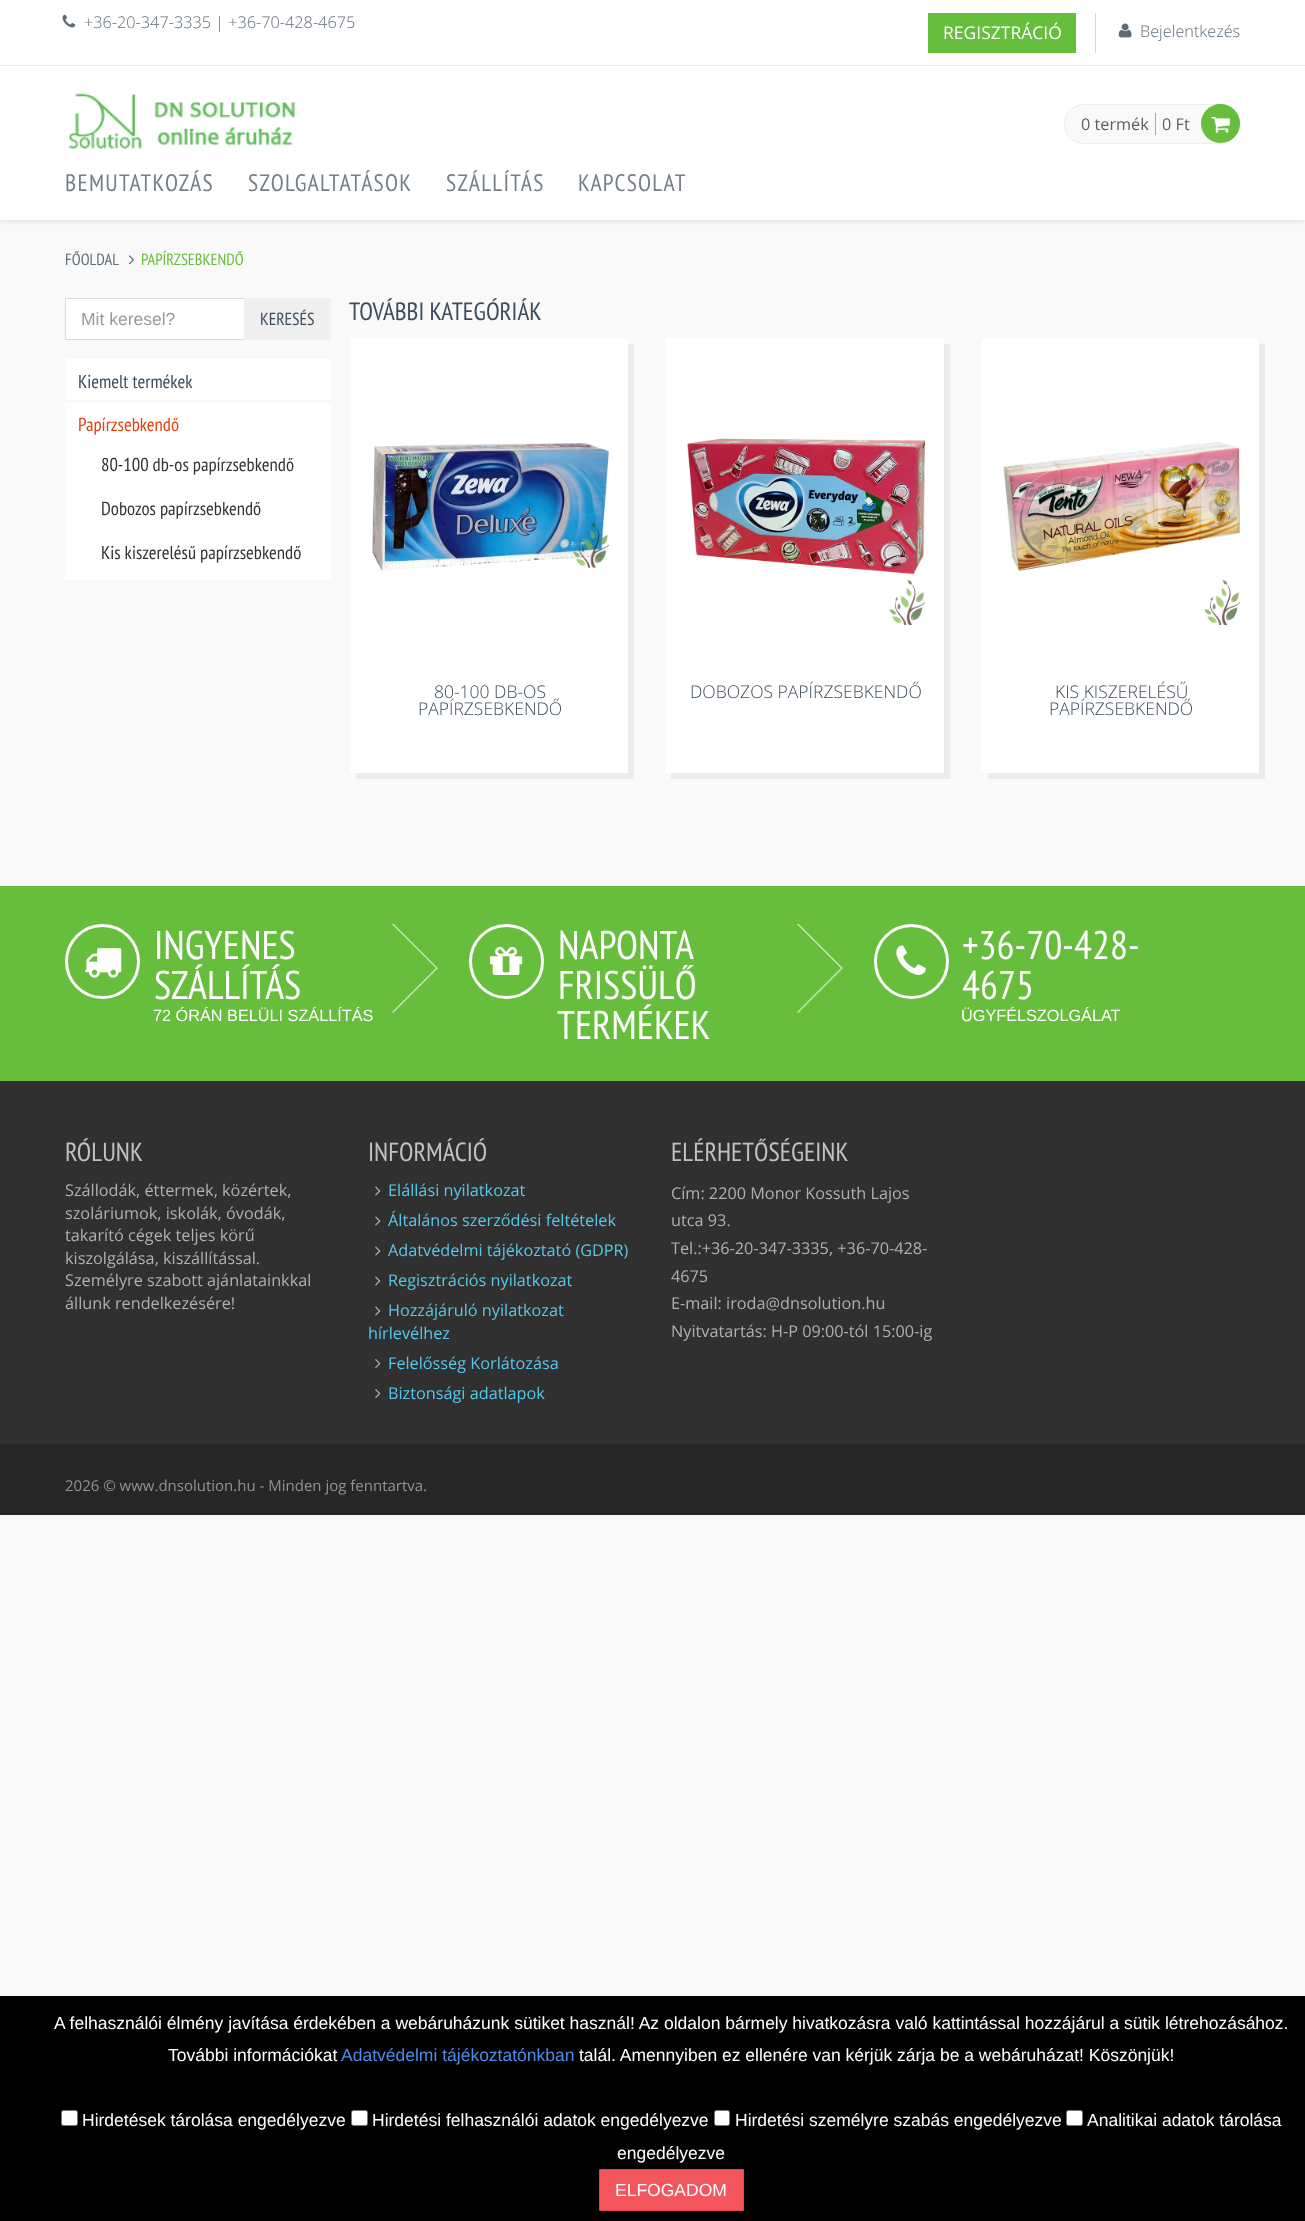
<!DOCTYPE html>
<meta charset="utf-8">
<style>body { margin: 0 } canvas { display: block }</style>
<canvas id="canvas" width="1305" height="2221"></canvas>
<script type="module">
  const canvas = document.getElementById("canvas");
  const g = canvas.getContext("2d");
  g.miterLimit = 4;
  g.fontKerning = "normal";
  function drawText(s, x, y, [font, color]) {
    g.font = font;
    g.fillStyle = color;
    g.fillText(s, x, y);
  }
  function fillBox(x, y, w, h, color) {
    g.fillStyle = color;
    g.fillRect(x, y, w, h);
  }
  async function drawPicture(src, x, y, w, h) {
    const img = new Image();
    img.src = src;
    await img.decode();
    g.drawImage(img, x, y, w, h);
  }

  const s1 = ["300 16.25px Open Sans", "#5F6D7B"];
  const s2 = ["17.5px Open Sans", "#FFFFFF"];
  const s3 = ["16.25px Open Sans", "#595F65"];
  const s4 = ["23.75px PT Sans Narrow", "#767F88"];
  const s5 = ["16.25px PT Sans Narrow", "#5F6D7B"];
  const s6 = ["16.25px PT Sans Narrow", "#67BD3C"];
  const s7 = ["17.5px Liberation Sans", "#999999"];
  const s8 = ["17.5px PT Sans Narrow", "#3E4D5C"];
  const s9 = ["18.75px PT Sans Narrow", "#3E4D5C"];
  const s10 = ["18.75px PT Sans Narrow", "#E6400C"];
  const s11 = ["18.75px PT Sans Narrow", "#333333"];
  const s12 = ["25px PT Sans Narrow", "#3E4D5C"];
  const s13 = ["300 17.5px Open Sans", "#3E4D5C"];
  const s14 = ["40px PT Sans Narrow", "#FFFFFF"];
  const s15 = ["16.25px Liberation Sans", "#FFFFFF"];
  const s16 = ["26.25px PT Sans Narrow", "#C2C1C1"];
  const s17 = ["16.25px Open Sans", "#B0B0B0"];
  const s18 = ["16.25px Open Sans", "#57C8EB"];
  const s19 = ["15px Open Sans", "#939393"];
  const s20 = ["17.5px Liberation Sans", "#FFFFFF"];
  const s21 = ["17.5px Liberation Sans", "#4B8EE7"];

  fillBox(0, 0, 1305, 2221, "#F9F9F9");
  fillBox(0, 0, 1305, 65, "#FFFFFF");
  fillBox(0, 65, 1305, 1, "#EEEEEE");
  await drawPicture("pic1.png", 62, 14, 14, 14);
  drawText("+36-20-347-3335 | +36-70-428-4675", 84, 28, s1);
  fillBox(1095, 13, 1, 40, "#D8D8D8");
  fillBox(928, 13, 148, 40, "#67BD3C");
  drawText("REGISZTRÁCIÓ", 943, 39, s2);
  await drawPicture("pic2.png", 1118, 23, 14, 15);
  drawText("Bejelentkezés", 1140, 37, s1);
  g.fillStyle = "#DDDDDD";
  g.filter = "blur(2px)";
  g.beginPath();
  g.rect(0, 68, 1305, 153);
  g.fill();
  g.filter = "none";
  fillBox(0, 66, 1305, 154, "#FFFFFF");
  await drawPicture("pic3.png", 68, 93, 228, 56);
  g.fillStyle = "#F9F9F9";
  g.beginPath();
  g.roundRect(1064.5, 104.5, 175, 39, 19.5);
  g.fill();
  g.strokeStyle = "#ECECEC";
  g.stroke();
  drawText("0 termék", 1081, 130, s3);
  drawText("0 Ft", 1162, 130, s3);
  fillBox(1155, 113, 1, 22, "#A5AAB0");
  g.fillStyle = "#67BD3C";
  g.beginPath();
  g.arc(1220.5, 123.5, 19.5, 0, Math.PI * 2);
  g.fill();
  await drawPicture("pic4.png", 1211, 116, 19, 17);
  g.letterSpacing = "1.25px";
  drawText("BEMUTATKOZÁS", 65, 191, s4);
  drawText("SZOLGALTATÁSOK", 248, 191, s4);
  drawText("SZÁLLÍTÁS", 446, 191, s4);
  drawText("KAPCSOLAT", 578, 191, s4);
  g.letterSpacing = "0px";
  drawText("FŐOLDAL", 65, 265, s5);
  await drawPicture("pic5.png", 128, 255, 7, 10);
  drawText("PAPÍRZSEBKENDŐ", 141, 265, s6);
  g.fillStyle = "#FFFFFF";
  g.beginPath();
  g.rect(65.5, 298.5, 179, 41);
  g.fill();
  g.strokeStyle = "#DBDBDB";
  g.stroke();
  drawText("Mit keresel?", 81, 325, s7);
  fillBox(244, 298, 87, 42, "#EFEFEF");
  drawText("KERESÉS", 260, 325, s8);
  fillBox(65, 359, 266, 41, "#FFFFFF");
  drawText("Kiemelt termékek", 78, 388, s9);
  fillBox(65, 403, 266, 177, "#FFFFFF");
  drawText("Papírzsebkendő", 78, 431, s10);
  drawText("80-100 db-os papírzsebkendő", 101, 471, s11);
  drawText("Dobozos papírzsebkendő", 101, 515, s11);
  drawText("Kis kiszerelésű papírzsebkendő", 101, 559, s11);
  drawText("TOVÁBBI KATEGÓRIÁK", 349, 320, s12);
  g.fillStyle = "#ECECEC";
  g.beginPath();
  g.moveTo(356, 772);
  g.lineTo(356, 779);
  g.lineTo(634, 779);
  g.lineTo(634, 344);
  g.lineTo(628, 344);
  g.lineTo(628, 772);
  g.closePath();
  g.fill();
  fillBox(350, 338, 278, 435, "#FFFFFF");
  await drawPicture("pic6.png", 372, 443, 237, 128);
  drawText("80-100 DB-OS", 434, 698, s13);
  drawText("PAPÍRZSEBKENDŐ", 418, 715, s13);
  g.fillStyle = "#ECECEC";
  g.beginPath();
  g.moveTo(671, 772);
  g.lineTo(671, 779);
  g.lineTo(950, 779);
  g.lineTo(950, 344);
  g.lineTo(944, 344);
  g.lineTo(944, 772);
  g.closePath();
  g.fill();
  fillBox(665, 338, 279, 435, "#FFFFFF");
  await drawPicture("pic7.png", 687, 438, 238, 187);
  drawText("DOBOZOS PAPÍRZSEBKENDŐ", 690, 698, s13);
  g.fillStyle = "#ECECEC";
  g.beginPath();
  g.moveTo(988, 772);
  g.lineTo(988, 779);
  g.lineTo(1265, 779);
  g.lineTo(1265, 344);
  g.lineTo(1259, 344);
  g.lineTo(1259, 772);
  g.closePath();
  g.fill();
  fillBox(981, 338, 278, 435, "#FFFFFF");
  await drawPicture("pic8.png", 1003, 441, 237, 184);
  drawText("KIS KISZERELÉSŰ", 1055, 698, s13);
  drawText("PAPÍRZSEBKENDŐ", 1049, 715, s13);
  fillBox(0, 886, 1305, 195, "#67BD3C");
  g.beginPath();
  g.arc(102.5, 961.5, 36, 0, Math.PI * 2);
  g.strokeStyle = "#FFFFFF";
  g.lineWidth = 3;
  g.stroke();
  await drawPicture("pic9.png", 85, 948, 37, 30);
  drawText("INGYENES", 154, 959, s14);
  drawText("SZÁLLÍTÁS", 154, 999, s14);
  drawText("72 ÓRÁN BELÜLI SZÁLLÍTÁS", 153, 1021, s15);
  await drawPicture("pic10.png", 392, 923, 46, 90);
  g.beginPath();
  g.arc(506.5, 961.5, 36, 0, Math.PI * 2);
  g.stroke();
  await drawPicture("pic11.png", 490, 946, 33, 29);
  drawText("NAPONTA", 558, 959, s14);
  drawText("FRISSÜLŐ", 558, 999, s14);
  drawText("TERMÉKEK", 557, 1039, s14);
  await drawPicture("pic12.png", 797, 923, 46, 90);
  g.beginPath();
  g.arc(911.5, 961.5, 36, 0, Math.PI * 2);
  g.stroke();
  await drawPicture("pic13.png", 896, 945, 30, 30);
  drawText("+36-70-428-", 962, 959, s14);
  drawText("4675", 962, 999, s14);
  drawText("ÜGYFÉLSZOLGÁLAT", 961, 1021, s15);
  fillBox(0, 1081, 1305, 363, "#313030");
  drawText("RÓLUNK", 65, 1161, s16);
  drawText("Szállodák, éttermek, közértek,", 65, 1196, s17);
  drawText("szoláriumok, iskolák, óvodák,", 65, 1219, s17);
  drawText("takarító cégek teljes körű", 65, 1241, s17);
  drawText("kiszolgálása, kiszállítással.", 65, 1264, s17);
  drawText("Személyre szabott ajánlatainkkal", 65, 1286, s17);
  drawText("állunk rendelkezésére!", 65, 1309, s17);
  drawText("INFORMÁCIÓ", 368, 1161, s16);
  await drawPicture("pic14.png", 375, 1186, 6, 10);
  drawText("Elállási nyilatkozat", 388, 1196, s18);
  await drawPicture("pic14.png", 375, 1216, 6, 10);
  drawText("Általános szerződési feltételek", 388, 1226, s18);
  await drawPicture("pic14.png", 375, 1246, 6, 10);
  drawText("Adatvédelmi tájékoztató (GDPR)", 388, 1256, s18);
  await drawPicture("pic14.png", 375, 1276, 6, 10);
  drawText("Regisztrációs nyilatkozat", 388, 1286, s18);
  await drawPicture("pic14.png", 375, 1306, 6, 10);
  drawText("Hozzájáruló nyilatkozat", 388, 1316, s18);
  drawText("hírlevélhez", 368, 1339, s18);
  await drawPicture("pic15.png", 375, 1359, 6, 9);
  drawText("Felelősség Korlátozása", 388, 1369, s18);
  await drawPicture("pic15.png", 375, 1389, 6, 9);
  drawText("Biztonsági adatlapok", 388, 1399, s18);
  drawText("ELÉRHETŐSÉGEINK", 671, 1161, s16);
  drawText("Cím: 2200 Monor Kossuth Lajos", 671, 1199, s17);
  drawText("utca 93.", 671, 1226, s17);
  drawText("Tel.:+36-20-347-3335, +36-70-428-", 671, 1254, s17);
  drawText("4675", 671, 1282, s17);
  drawText("E-mail: iroda@dnsolution.hu", 671, 1309, s17);
  drawText("Nyitvatartás: H-P 09:00-tól 15:00-ig", 671, 1337, s17);
  fillBox(0, 1444, 1305, 71, "#272626");
  drawText("2026 © www.dnsolution.hu - Minden jog fenntartva.", 65, 1491, s19);
  fillBox(0, 1996, 1305, 225, "#000000");
  drawText("A felhasználói élmény javítása érdekében a webáruházunk sütiket használ! Az oldalon bármely hivatkozásra való kattintással hozzájárul a sütik létrehozásához.", 54, 2029, s20);
  drawText("További információkat", 168, 2061, s20);
  drawText("Adatvédelmi tájékoztatónkban", 341, 2061, s21);
  drawText("talál. Amennyiben ez ellenére van kérjük zárja be a webáruházat! Köszönjük!", 579, 2061, s20);
  g.beginPath();
  g.roundRect(61.5, 2110.5, 16, 15, 2);
  g.fill();
  g.strokeStyle = "#767676";
  g.lineWidth = 1;
  g.stroke();
  drawText("Hirdetések tárolása engedélyezve", 82, 2126, s20);
  g.beginPath();
  g.roundRect(351.5, 2110.5, 16, 15, 2);
  g.fill();
  g.stroke();
  drawText("Hirdetési felhasználói adatok engedélyezve", 372, 2126, s20);
  g.beginPath();
  g.roundRect(714.5, 2110.5, 15, 15, 2);
  g.fill();
  g.stroke();
  drawText("Hirdetési személyre szabás engedélyezve", 735, 2126, s20);
  g.beginPath();
  g.roundRect(1066.5, 2110.5, 16, 15, 2);
  g.fill();
  g.stroke();
  drawText("Analitikai adatok tárolása", 1087, 2126, s20);
  drawText("engedélyezve", 617, 2159, s20);
  g.fillStyle = "#F3565D";
  g.beginPath();
  g.rect(599.5, 2169.5, 144, 41);
  g.fill();
  g.strokeStyle = "#F13E46";
  g.stroke();
  drawText("ELFOGADOM", 615, 2196, s20);
</script>
